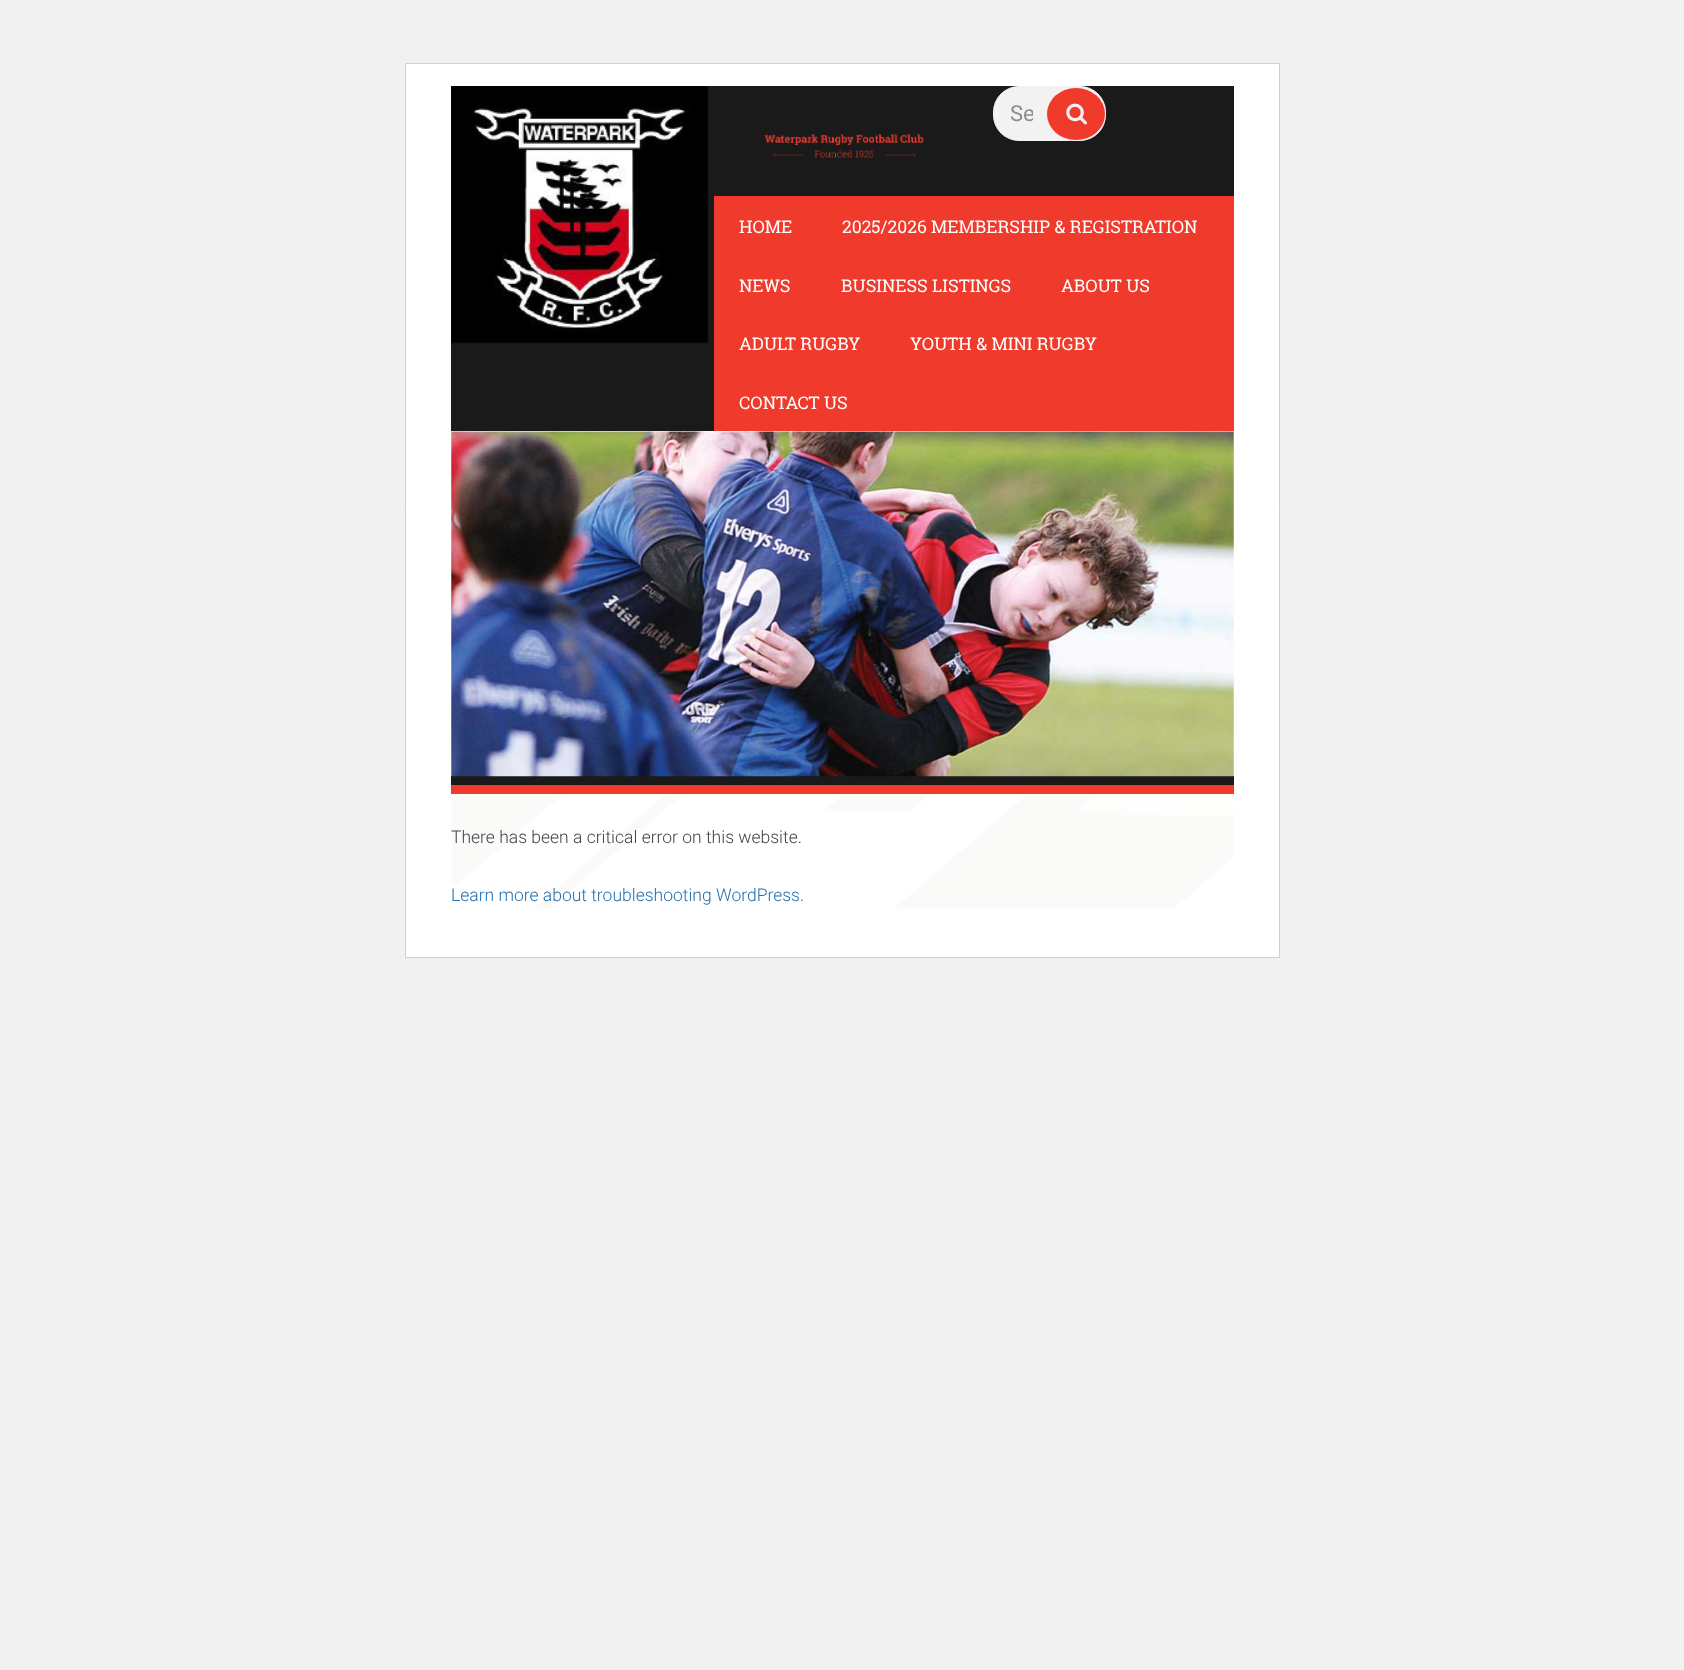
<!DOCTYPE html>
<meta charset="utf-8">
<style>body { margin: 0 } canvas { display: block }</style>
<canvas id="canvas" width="1684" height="1670"></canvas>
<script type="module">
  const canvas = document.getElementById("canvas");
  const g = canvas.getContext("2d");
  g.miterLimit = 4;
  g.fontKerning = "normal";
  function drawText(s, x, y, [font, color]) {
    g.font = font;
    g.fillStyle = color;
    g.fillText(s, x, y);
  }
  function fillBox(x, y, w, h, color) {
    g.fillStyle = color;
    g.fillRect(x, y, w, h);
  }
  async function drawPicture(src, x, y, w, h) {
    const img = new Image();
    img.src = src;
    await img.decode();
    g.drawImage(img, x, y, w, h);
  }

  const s1 = ["22px Roboto", "#868E96"];
  const s2 = ["17.5px Roboto Slab", "#FFFFFF"];
  const s3 = ["300 17.5px Roboto", "#444444"];
  const s4 = ["300 17.5px Roboto", "#2271B1"];

  fillBox(0, 0, 1684, 1670, "#F1F1F1");
  g.fillStyle = "#FFFFFF";
  g.beginPath();
  g.rect(405.5, 63.5, 874, 894);
  g.fill();
  g.strokeStyle = "#CCD0D4";
  g.stroke();
  fillBox(451, 86, 783, 345, "#1A1A1A");
  await drawPicture("pic1.png", 451, 86, 258, 258);
  g.fillStyle = "#F3F2F1";
  g.beginPath();
  g.roundRect(993.5, 86.5, 112, 54, 25.5);
  g.fill();
  g.strokeStyle = "#F3F2F1";
  g.stroke();
  g.save();
  g.beginPath();
  g.rect(1010, 100, 23, 26);
  g.clip();
  drawText("Se", 1010, 121, s1);
  g.restore();
  g.fillStyle = "#EF3A2C";
  g.beginPath();
  g.ellipse(1076, 114, 29, 26, 0, 0, Math.PI * 2);
  g.fill();
  await drawPicture("pic2.png", 1066, 103, 21, 22);
  await drawPicture("pic3.png", 764, 134, 160, 24);
  fillBox(714, 196, 520, 235, "#EF3A2C");
  drawText("HOME", 739, 233, s2);
  drawText("2025/2026 MEMBERSHIP & REGISTRATION", 842, 233, s2);
  drawText("NEWS", 739, 292, s2);
  drawText("BUSINESS LISTINGS", 841, 292, s2);
  drawText("ABOUT US", 1061, 292, s2);
  drawText("ADULT RUGBY", 739, 350, s2);
  drawText("YOUTH & MINI RUGBY", 910, 350, s2);
  drawText("CONTACT US", 739, 409, s2);
  fillBox(451, 776, 783, 9, "#1A1A1A");
  await drawPicture("pic4.png", 451, 431, 783, 346);
  await drawPicture("pic5.png", 451, 794, 783, 115);
  fillBox(451, 785, 783, 9, "#EF3A2C");
  drawText("There has been a critical error on this website.", 451, 843, s3);
  drawText("Learn more about troubleshooting WordPress.", 451, 901, s4);
</script>
